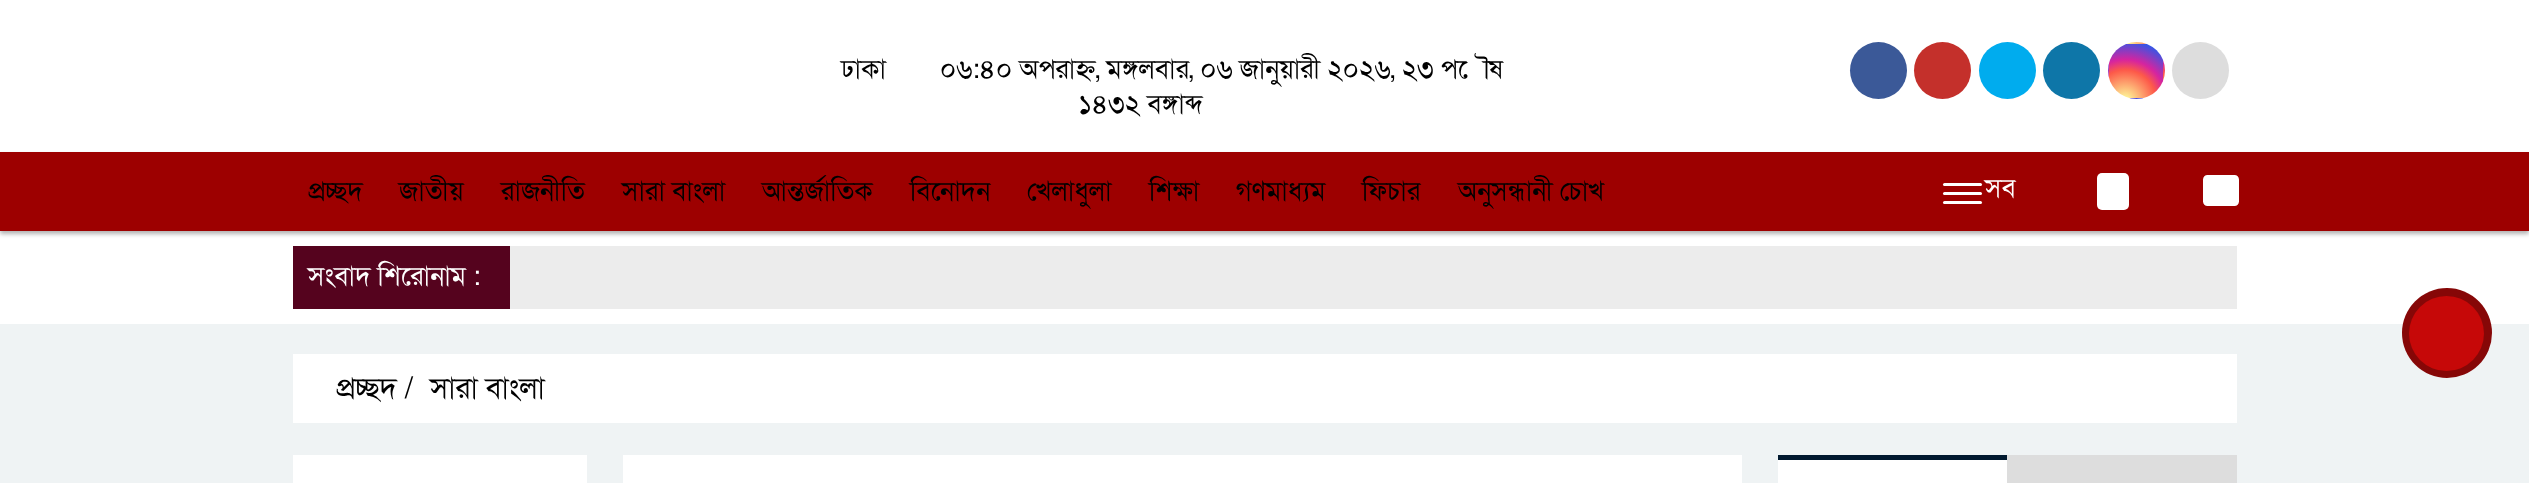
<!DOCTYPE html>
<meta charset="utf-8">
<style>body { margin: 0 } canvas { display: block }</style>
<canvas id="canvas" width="2529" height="483"></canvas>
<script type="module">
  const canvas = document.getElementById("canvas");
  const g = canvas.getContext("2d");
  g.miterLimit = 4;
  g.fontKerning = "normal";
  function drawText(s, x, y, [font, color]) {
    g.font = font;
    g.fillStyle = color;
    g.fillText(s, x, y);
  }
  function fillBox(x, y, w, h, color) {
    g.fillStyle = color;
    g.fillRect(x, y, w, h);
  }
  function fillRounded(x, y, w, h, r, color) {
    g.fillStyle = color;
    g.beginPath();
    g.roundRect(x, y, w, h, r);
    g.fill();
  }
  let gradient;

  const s1 = ["27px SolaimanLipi", "#000000"];
  const s2 = ["27px SolaimanLipi", "#FFFFFF"];
  const s3 = ["30px SolaimanLipi", "#000000"];

  fillBox(0, 0, 2529, 483, "#FFFFFF");
  drawText("ঢাকা", 841, 78, s1);
  drawText("০৬:৪০ অপরাহ্ন, মঙ্গলবার, ০৬ জানুয়ারী ২০২৬, ২৩ পৌষ", 940, 78, s1);
  drawText("১৪৩২ বঙ্গাব্দ", 1078, 113, s1);
  g.fillStyle = "#3B5998";
  g.beginPath();
  g.arc(1878.5, 70.5, 28.5, 0, Math.PI * 2);
  g.fill();
  g.fillStyle = "#C4302B";
  g.beginPath();
  g.arc(1942.5, 70.5, 28.5, 0, Math.PI * 2);
  g.fill();
  g.fillStyle = "#00ACEE";
  g.beginPath();
  g.arc(2007.5, 70.5, 28.5, 0, Math.PI * 2);
  g.fill();
  g.fillStyle = "#0E76A8";
  g.beginPath();
  g.arc(2071.5, 70.5, 28.5, 0, Math.PI * 2);
  g.fill();
  g.save();
  g.beginPath();
  g.roundRect(2108, 42, 57, 57, 28.5);
  g.clip();
  gradient = g.createRadialGradient(2125, 47, 0, 2125, 47, 69);
  gradient.addColorStop(0, "#FDF497");
  gradient.addColorStop(0.05, "#FDF497");
  gradient.addColorStop(0.45, "#FD5949");
  gradient.addColorStop(0.6, "#D6249F");
  gradient.addColorStop(0.9, "#285AEB");
  g.fillStyle = gradient;
  g.fillRect(2126, 42, 21, 2);
  gradient = g.createRadialGradient(2071, 101, 0, 2071, 101, 69);
  gradient.addColorStop(0, "#FDF497");
  gradient.addColorStop(0.05, "#FDF497");
  gradient.addColorStop(0.45, "#FD5949");
  gradient.addColorStop(0.6, "#D6249F");
  gradient.addColorStop(0.9, "#285AEB");
  g.fillStyle = gradient;
  g.fillRect(2108, 63, 1, 15);
  gradient = g.createRadialGradient(2125, 101, 0, 2125, 101, 69);
  gradient.addColorStop(0, "#FDF497");
  gradient.addColorStop(0.05, "#FDF497");
  gradient.addColorStop(0.45, "#FD5949");
  gradient.addColorStop(0.6, "#D6249F");
  gradient.addColorStop(0.9, "#285AEB");
  g.fillStyle = gradient;
  g.fillRect(2109, 44, 54, 54);
  gradient = g.createRadialGradient(2179, 101, 0, 2179, 101, 69);
  gradient.addColorStop(0, "#FDF497");
  gradient.addColorStop(0.05, "#FDF497");
  gradient.addColorStop(0.45, "#FD5949");
  gradient.addColorStop(0.6, "#D6249F");
  gradient.addColorStop(0.9, "#285AEB");
  g.fillStyle = gradient;
  g.fillRect(2163, 60, 2, 21);
  gradient = g.createRadialGradient(2125, 155, 0, 2125, 155, 69);
  gradient.addColorStop(0, "#FDF497");
  gradient.addColorStop(0.05, "#FDF497");
  gradient.addColorStop(0.45, "#FD5949");
  gradient.addColorStop(0.6, "#D6249F");
  gradient.addColorStop(0.9, "#285AEB");
  g.fillStyle = gradient;
  g.fillRect(2129, 98, 15, 1);
  g.restore();
  g.fillStyle = "#DDDDDD";
  g.beginPath();
  g.arc(2200.5, 70.5, 28.5, 0, Math.PI * 2);
  g.fill();
  g.fillStyle = "rgba(0, 0, 0, 0.3)";
  g.filter = "blur(2px)";
  g.beginPath();
  g.rect(0, 155, 2529, 79);
  g.fill();
  g.filter = "none";
  fillBox(0, 152, 2529, 79, "#9D0000");
  drawText("প্রচ্ছদ", 308, 200, s1);
  drawText("জাতীয়", 399, 200, s1);
  drawText("রাজনীতি", 501, 200, s1);
  drawText("সারা বাংলা", 622, 200, s1);
  drawText("আন্তর্জাতিক", 762, 200, s1);
  drawText("বিনোদন", 910, 200, s1);
  drawText("খেলাধুলা", 1027, 200, s1);
  drawText("শিক্ষা", 1149, 200, s1);
  drawText("গণমাধ্যম", 1236, 200, s1);
  drawText("ফিচার", 1362, 200, s1);
  drawText("অনুসন্ধানী চোখ", 1458, 200, s1);
  fillRounded(1943, 183, 39, 3, 1.5, "#FFFFFF");
  fillRounded(1943, 192, 39, 3, 1.5, "#FFFFFF");
  fillRounded(1943, 201, 39, 3, 1.5, "#FFFFFF");
  drawText("সব", 1985, 197, s2);
  fillRounded(2097, 173, 32, 37, 5, "#FFFFFF");
  g.beginPath();
  g.moveTo(2203, 201.5);
  g.lineTo(2203, 179.5);
  g.bezierCurveTo(2203, 177, 2205, 175, 2207.5, 175);
  g.lineTo(2234.5, 175);
  g.bezierCurveTo(2237, 175, 2239, 177, 2239, 179.5);
  g.lineTo(2239, 201.5);
  g.bezierCurveTo(2239, 204, 2237, 206, 2234.5, 206);
  g.lineTo(2207.5, 206);
  g.bezierCurveTo(2205, 206, 2203, 204, 2203, 201.5);
  g.closePath();
  g.fill();
  fillBox(293, 246, 217, 63, "#55031E");
  drawText("সংবাদ শিরোনাম :", 308, 285, s2);
  fillBox(510, 246, 1727, 63, "#ECECEC");
  fillBox(0, 324, 2529, 159, "#EFF3F4");
  g.fillStyle = "#860707";
  g.beginPath();
  g.arc(2447, 333, 45, 0, Math.PI * 2);
  g.fill();
  g.fillStyle = "#C60808";
  g.beginPath();
  g.arc(2446.5, 333.5, 37.5, 0, Math.PI * 2);
  g.fill();
  fillBox(293, 354, 1944, 69, "#FFFFFF");
  drawText("প্রচ্ছদ /", 336, 398, s3);
  drawText("সারা বাংলা", 430, 398, s3);
  fillBox(293, 455, 294, 28, "#FFFFFF");
  fillBox(623, 455, 1119, 28, "#FFFFFF");
  fillBox(1778, 460, 229, 23, "#FFFFFF");
  fillBox(1778, 455, 229, 5, "#01192F");
  fillBox(2007, 455, 230, 28, "#DDDDDD");
</script>
